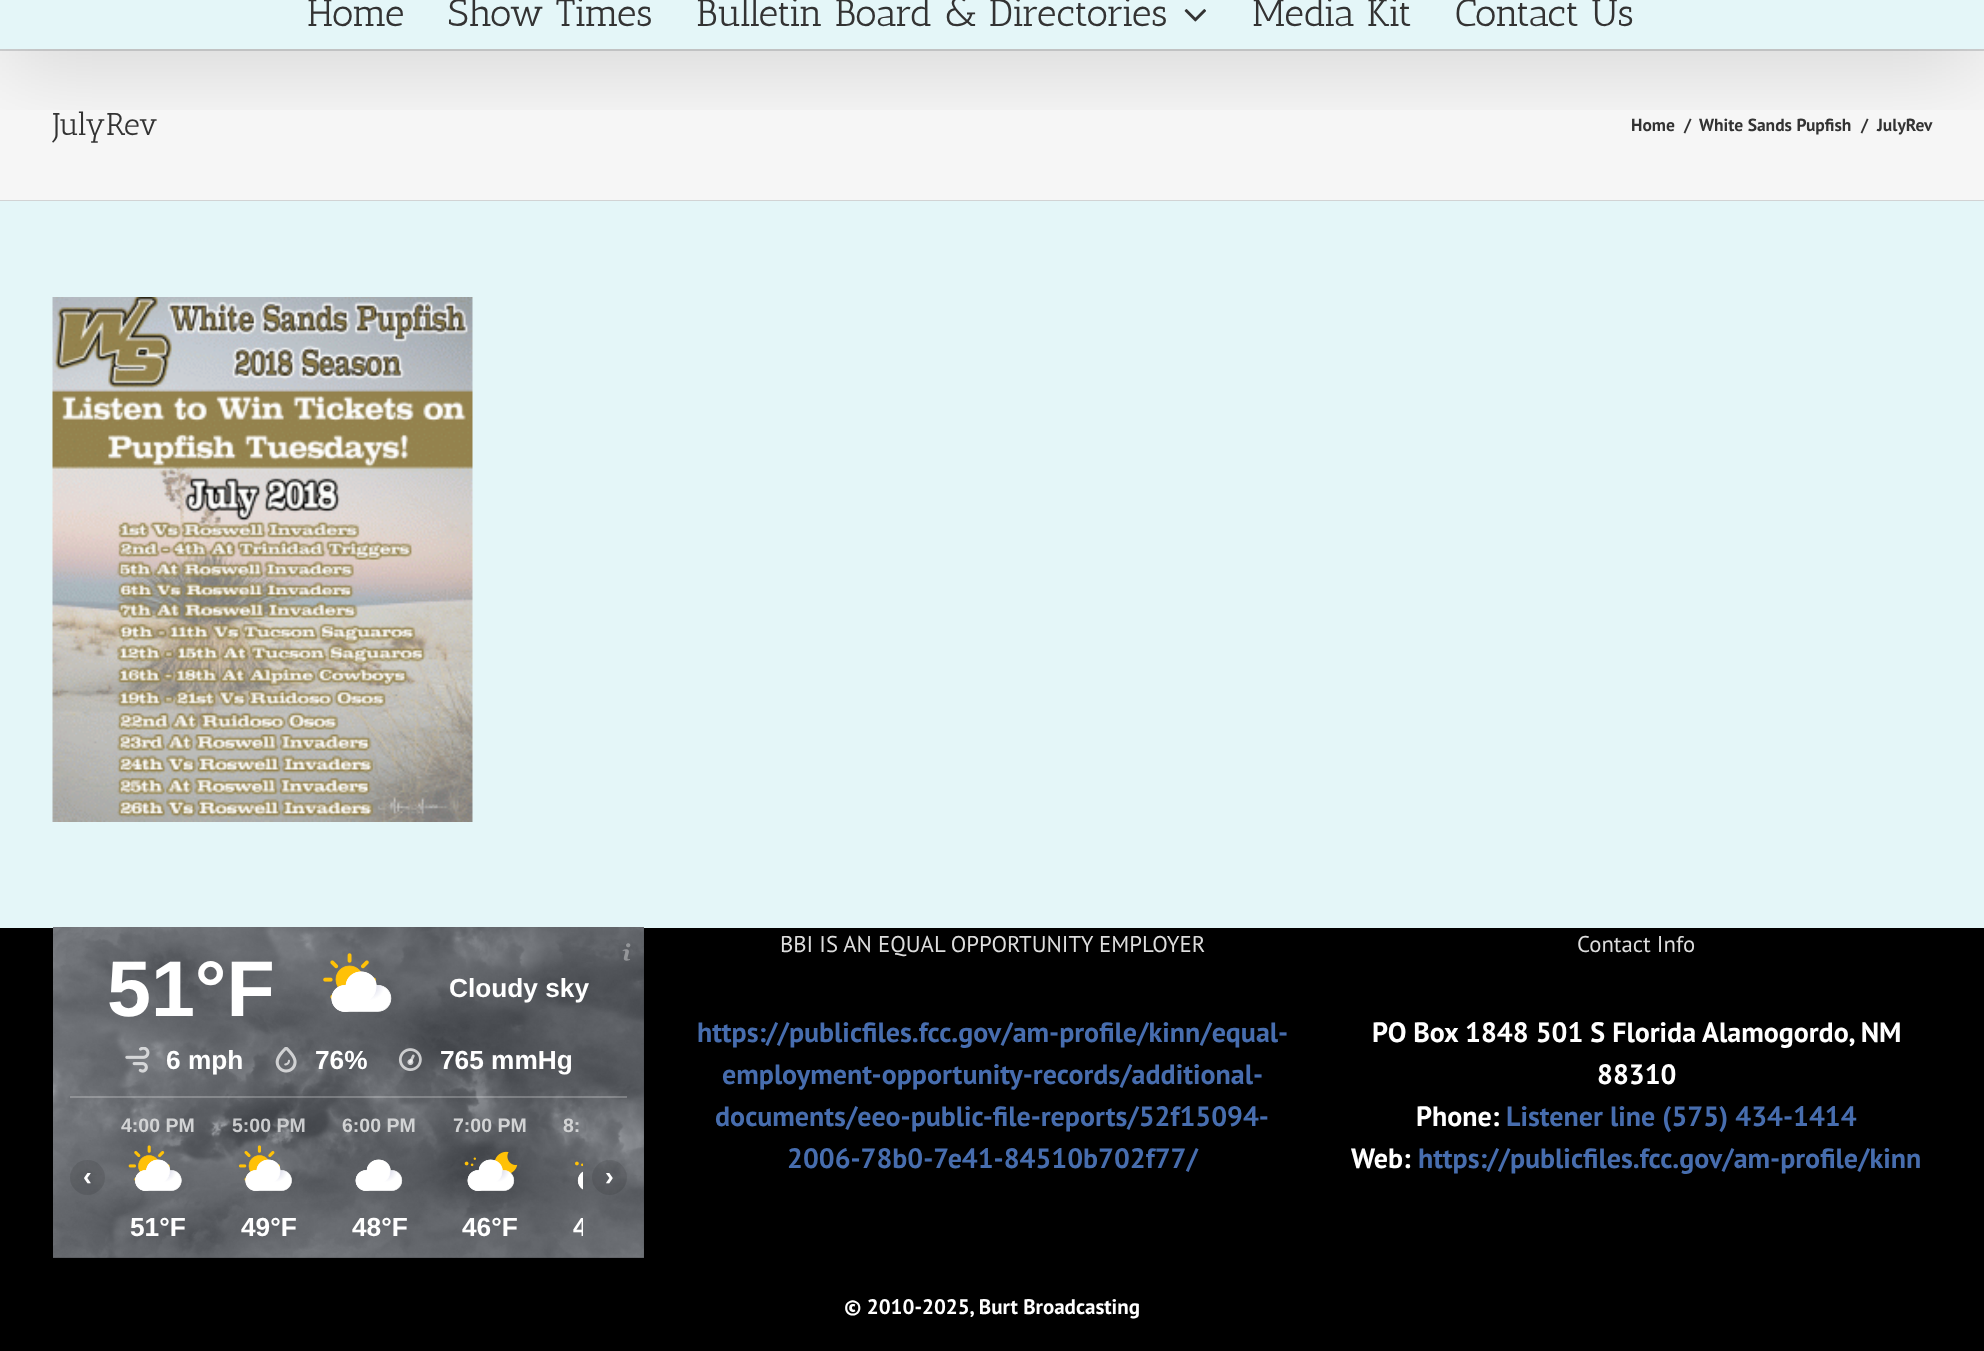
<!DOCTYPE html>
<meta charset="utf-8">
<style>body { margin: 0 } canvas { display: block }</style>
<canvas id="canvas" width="1984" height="1351"></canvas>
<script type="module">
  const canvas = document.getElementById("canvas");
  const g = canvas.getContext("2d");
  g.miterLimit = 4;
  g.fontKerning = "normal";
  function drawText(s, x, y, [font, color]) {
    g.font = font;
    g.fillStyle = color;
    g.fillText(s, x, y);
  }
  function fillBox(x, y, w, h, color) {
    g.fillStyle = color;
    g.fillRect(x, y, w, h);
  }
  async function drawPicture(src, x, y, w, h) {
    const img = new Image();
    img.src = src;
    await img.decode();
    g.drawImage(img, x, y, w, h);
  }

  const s1 = ["38.5px Antic Slab", "#333333"];
  const s2 = ["31.5px Antic Slab", "#333333"];
  const s3 = ["bold 17.5px PT Sans", "#333333"];
  const s4 = ["bold 79px Liberation Sans", "#FFFFFF"];
  const s5 = ["bold 26.25px Liberation Sans", "#FFFFFF"];
  const s6 = ["bold 19.5px Liberation Sans", "#D2D3D4"];
  const s7 = ["bold 19.5px Liberation Sans", "#CACBCD"];
  const s8 = ["22.75px PT Sans", "#DDDDDD"];
  const s9 = ["bold 28px PT Sans", "#476DAE"];
  const s10 = ["bold 28px PT Sans", "#FFFFFF"];
  const s11 = ["bold 21px PT Sans", "#FFFFFF"];

  fillBox(0, 0, 1984, 1351, "#E4F6F8");
  fillBox(0, 51, 1984, 149, "#F6F6F6");
  fillBox(0, 49, 1984, 2, "#D2D3D4");
  g.save();
  g.beginPath();
  g.rect(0, 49, 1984, 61);
  g.clip();
  g.fillStyle = "rgba(0, 0, 0, 0.14)";
  g.filter = "blur(44px)";
  g.beginPath();
  g.rect(4, -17, 1977, 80);
  g.fill();
  g.filter = "none";
  g.restore();
  drawText("Home", 307, 26, s1);
  drawText("Show Times", 448, 26, s1);
  drawText("Bulletin Board & Directories", 696, 26, s1);
  await drawPicture("pic1.png", 1184, 9, 22, 13);
  drawText("Media Kit", 1252, 26, s1);
  drawText("Contact Us", 1455, 26, s1);
  fillBox(0, 200, 1984, 1, "#D2D3D4");
  drawText("JulyRev", 53, 135, s2);
  drawText("Home", 1631, 131, s3);
  drawText("/", 1684, 131, s3);
  drawText("White Sands Pupfish", 1699, 131, s3);
  drawText("/", 1861, 131, s3);
  drawText("JulyRev", 1877, 131, s3);
  await drawPicture("pic2.png", 52, 297, 421, 525);
  fillBox(0, 928, 1984, 423, "#000000");
  await drawPicture("pic3.png", 53, 927, 591, 331);
  await drawPicture("pic4.png", 622, 943, 9, 18);
  drawText("51°F", 107, 1016, s4);
  await drawPicture("pic5.png", 323, 953, 69, 59);
  drawText("Cloudy sky", 449, 997, s5);
  await drawPicture("pic6.png", 125, 1047, 25, 26);
  drawText("6 mph", 166, 1069, s5);
  await drawPicture("pic7.png", 275, 1047, 22, 26);
  drawText("76%", 315, 1069, s5);
  await drawPicture("pic8.png", 398, 1048, 24, 23);
  drawText("765 mmHg", 440, 1069, s5);
  fillBox(70, 1096, 557, 2, "rgba(255, 255, 255, 0.24)");
  g.fillStyle = "rgba(0, 0, 0, 0.1)";
  g.beginPath();
  g.arc(87.5, 1177.5, 17.5, 0, Math.PI * 2);
  g.fill();
  drawText("‹", 83, 1185, s5);
  drawText("4:00 PM", 121, 1132, s6);
  await drawPicture("pic9.png", 128, 1145, 54, 46);
  drawText("51°F", 130, 1236, s5);
  drawText("5:00 PM", 232, 1132, s7);
  await drawPicture("pic10.png", 238, 1145, 54, 46);
  drawText("49°F", 241, 1236, s5);
  drawText("6:00 PM", 342, 1132, s6);
  await drawPicture("pic11.png", 355, 1159, 48, 32);
  drawText("48°F", 352, 1236, s5);
  drawText("7:00 PM", 453, 1132, s6);
  await drawPicture("pic12.png", 464, 1151, 54, 40);
  drawText("46°F", 462, 1236, s5);
  drawText("8:", 563, 1132, s6);
  await drawPicture("pic13.png", 575, 1161, 8, 29);
  g.save();
  g.beginPath();
  g.rect(114, 1115, 469, 126);
  g.clip();
  drawText("4", 573, 1236, s5);
  g.restore();
  g.fillStyle = "rgba(0, 0, 0, 0.1)";
  g.beginPath();
  g.arc(609.5, 1177.5, 17.5, 0, Math.PI * 2);
  g.fill();
  drawText("›", 605, 1185, s5);
  drawText("BBI IS AN EQUAL OPPORTUNITY EMPLOYER", 780, 952, s8);
  drawText("https://publicfiles.fcc.gov/am-profile/kinn/equal-", 697, 1042, s9);
  drawText("employment-opportunity-records/additional-", 722, 1084, s9);
  drawText("documents/eeo-public-file-reports/52f15094-", 715, 1126, s9);
  drawText("2006-78b0-7e41-84510b702f77/", 787, 1168, s9);
  drawText("Contact Info", 1577, 952, s8);
  drawText("PO Box 1848 501 S Florida Alamogordo, NM", 1372, 1042, s10);
  drawText("88310", 1597, 1084, s10);
  drawText("Phone:", 1416, 1126, s10);
  drawText("Listener line (575) 434-1414", 1506, 1126, s9);
  drawText("Web:", 1351, 1168, s10);
  drawText("https://publicfiles.fcc.gov/am-profile/kinn", 1418, 1168, s9);
  drawText("© 2010-2025, Burt Broadcasting", 844, 1314, s11);
</script>
